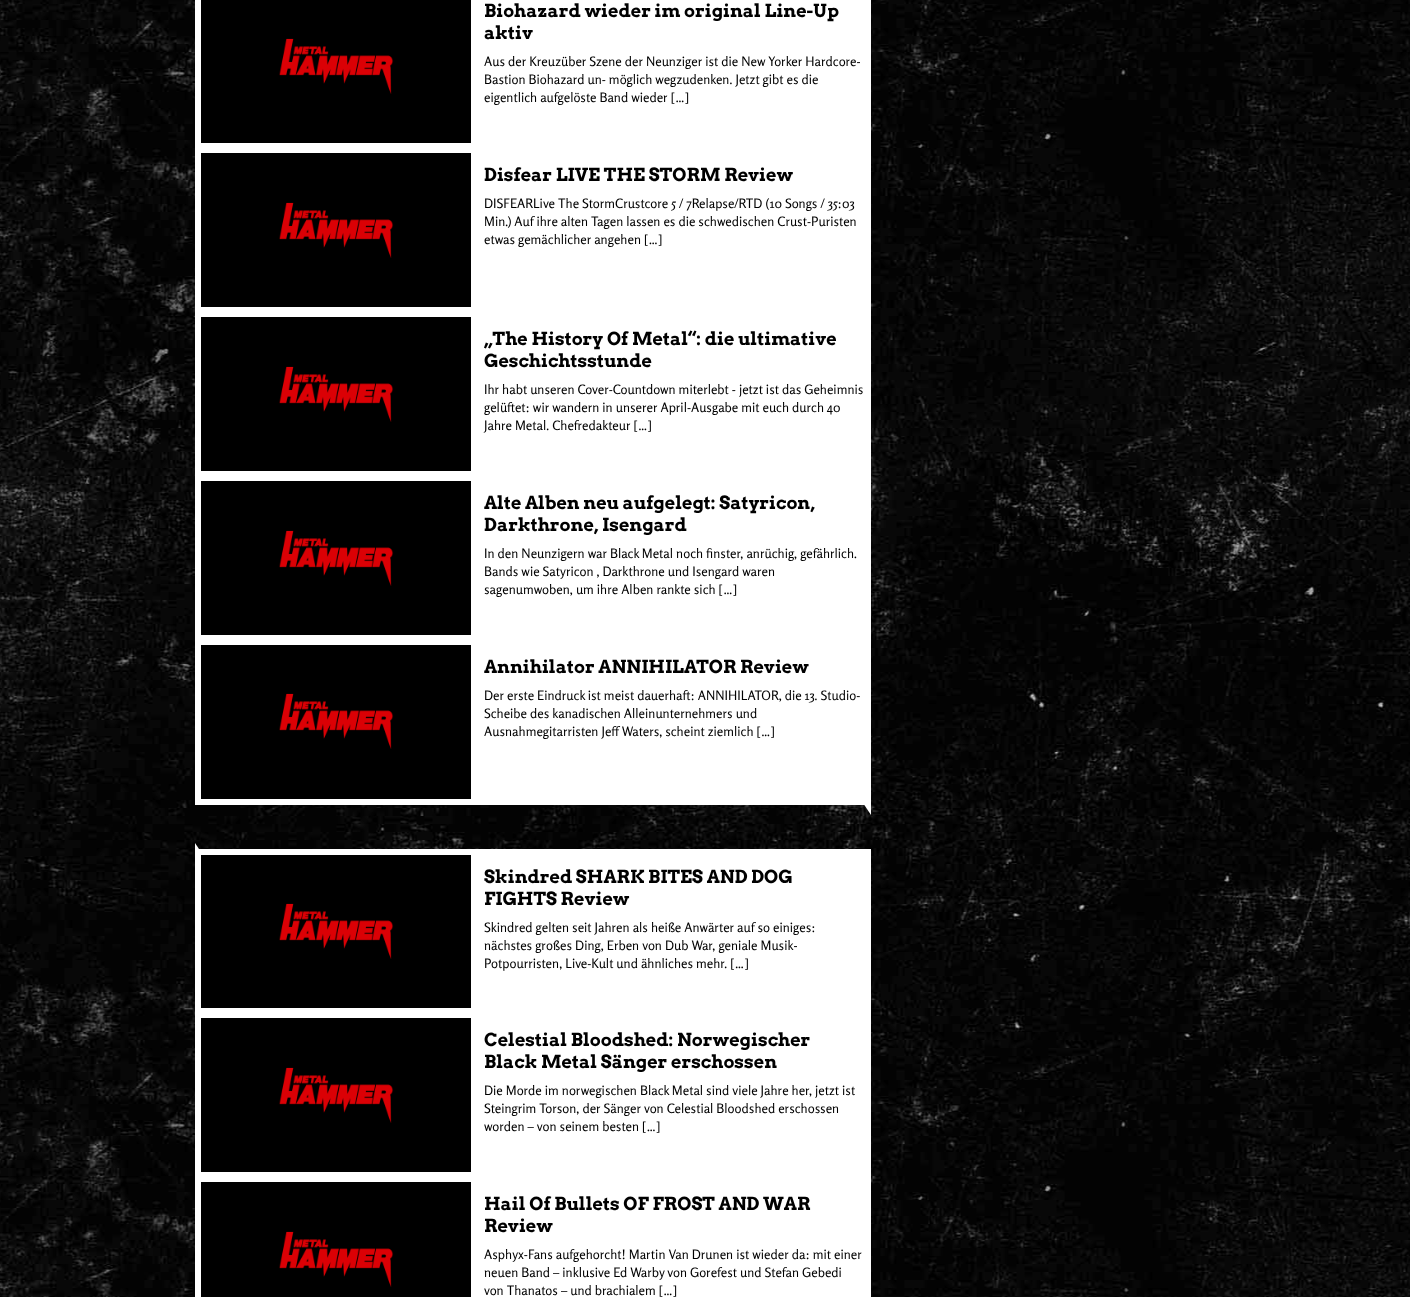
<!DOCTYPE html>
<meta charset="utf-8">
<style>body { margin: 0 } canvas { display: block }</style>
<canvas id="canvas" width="1410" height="1297"></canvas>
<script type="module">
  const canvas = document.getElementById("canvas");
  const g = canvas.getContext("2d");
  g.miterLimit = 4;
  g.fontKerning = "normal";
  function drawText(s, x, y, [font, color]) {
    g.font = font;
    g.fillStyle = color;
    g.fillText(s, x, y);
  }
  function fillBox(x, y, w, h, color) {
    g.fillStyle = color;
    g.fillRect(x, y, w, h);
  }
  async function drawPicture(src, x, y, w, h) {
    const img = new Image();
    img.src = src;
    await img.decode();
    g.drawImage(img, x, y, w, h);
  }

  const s1 = ["bold 18px Arvo", "#000000"];
  const s2 = ["13px Rosario", "#000000"];

  fillBox(0, 0, 1410, 1297, "#FFFFFF");
  await drawPicture("pic1.png", 0, 0, 1410, 1297);
  await drawPicture("pic2.png", 195, 0, 1020, 1297);
  fillBox(195, 0, 676, 805, "#FFFFFF");
  fillBox(201, 0, 270, 143, "#000000");
  await drawPicture("pic3.png", 279, 38, 115, 56);
  drawText("Biohazard wieder im original Line-Up", 484, 17, s1);
  drawText("aktiv", 484, 39, s1);
  drawText("Aus der Kreuzüber Szene der Neunziger ist die New Yorker Hardcore-", 484, 66, s2);
  drawText("Bastion Biohazard un- möglich wegzudenken. Jetzt gibt es die", 484, 84, s2);
  drawText("eigentlich aufgelöste Band wieder […]", 484, 102, s2);
  fillBox(201, 153, 270, 154, "#000000");
  await drawPicture("pic3.png", 279, 202, 115, 56);
  drawText("Disfear LIVE THE STORM Review", 484, 181, s1);
  drawText("DISFEARLive The StormCrustcore 5 / 7Relapse/RTD (10 Songs / 35:03", 484, 208, s2);
  drawText("Min.) Auf ihre alten Tagen lassen es die schwedischen Crust-Puristen", 484, 226, s2);
  drawText("etwas gemächlicher angehen […]", 484, 244, s2);
  fillBox(201, 317, 270, 154, "#000000");
  await drawPicture("pic3.png", 279, 366, 115, 56);
  drawText("„The History Of Metal“: die ultimative", 484, 345, s1);
  drawText("Geschichtsstunde", 484, 367, s1);
  drawText("Ihr habt unseren Cover-Countdown miterlebt - jetzt ist das Geheimnis", 484, 394, s2);
  drawText("gelüftet: wir wandern in unserer April-Ausgabe mit euch durch 40", 484, 412, s2);
  drawText("Jahre Metal. Chefredakteur […]", 484, 430, s2);
  fillBox(201, 481, 270, 154, "#000000");
  await drawPicture("pic3.png", 279, 530, 115, 56);
  drawText("Alte Alben neu aufgelegt: Satyricon,", 484, 509, s1);
  drawText("Darkthrone, Isengard", 484, 531, s1);
  drawText("In den Neunzigern war Black Metal noch finster, anrüchig, gefährlich.", 484, 558, s2);
  drawText("Bands wie Satyricon , Darkthrone und Isengard waren", 484, 576, s2);
  drawText("sagenumwoben, um ihre Alben rankte sich […]", 484, 594, s2);
  fillBox(201, 645, 270, 154, "#000000");
  await drawPicture("pic4.png", 279, 693, 115, 56);
  drawText("Annihilator ANNIHILATOR Review", 484, 673, s1);
  drawText("Der erste Eindruck ist meist dauerhaft: ANNIHILATOR, die 13. Studio-", 484, 700, s2);
  drawText("Scheibe des kanadischen Alleinunternehmers und", 484, 718, s2);
  drawText("Ausnahmegitarristen Jeff Waters, scheint ziemlich […]", 484, 736, s2);
  g.fillStyle = "#FFFFFF";
  g.beginPath();
  g.moveTo(871, 803);
  g.lineTo(871, 815);
  g.lineTo(863, 803);
  g.closePath();
  g.fill();
  fillBox(195, 849, 676, 448, "#FFFFFF");
  g.beginPath();
  g.moveTo(195, 852);
  g.lineTo(195, 843);
  g.lineTo(201, 852);
  g.closePath();
  g.fill();
  fillBox(201, 855, 270, 153, "#000000");
  await drawPicture("pic4.png", 279, 903, 115, 56);
  drawText("Skindred SHARK BITES AND DOG", 484, 883, s1);
  drawText("FIGHTS Review", 484, 905, s1);
  drawText("Skindred gelten seit Jahren als heiße Anwärter auf so einiges:", 484, 932, s2);
  drawText("nächstes großes Ding, Erben von Dub War, geniale Musik-", 484, 950, s2);
  drawText("Potpourristen, Live-Kult und ähnliches mehr. […]", 484, 968, s2);
  fillBox(201, 1018, 270, 154, "#000000");
  await drawPicture("pic3.png", 279, 1067, 115, 56);
  drawText("Celestial Bloodshed: Norwegischer", 484, 1046, s1);
  drawText("Black Metal Sänger erschossen", 484, 1068, s1);
  drawText("Die Morde im norwegischen Black Metal sind viele Jahre her, jetzt ist", 484, 1095, s2);
  drawText("Steingrim Torson, der Sänger von Celestial Bloodshed erschossen", 484, 1113, s2);
  drawText("worden – von seinem besten […]", 484, 1131, s2);
  fillBox(201, 1182, 270, 115, "#000000");
  await drawPicture("pic3.png", 279, 1231, 115, 56);
  drawText("Hail Of Bullets OF FROST AND WAR", 484, 1210, s1);
  drawText("Review", 484, 1232, s1);
  drawText("Asphyx-Fans aufgehorcht! Martin Van Drunen ist wieder da: mit einer", 484, 1259, s2);
  drawText("neuen Band – inklusive Ed Warby von Gorefest und Stefan Gebedi", 484, 1277, s2);
  drawText("von Thanatos – und brachialem […]", 484, 1295, s2);
</script>
